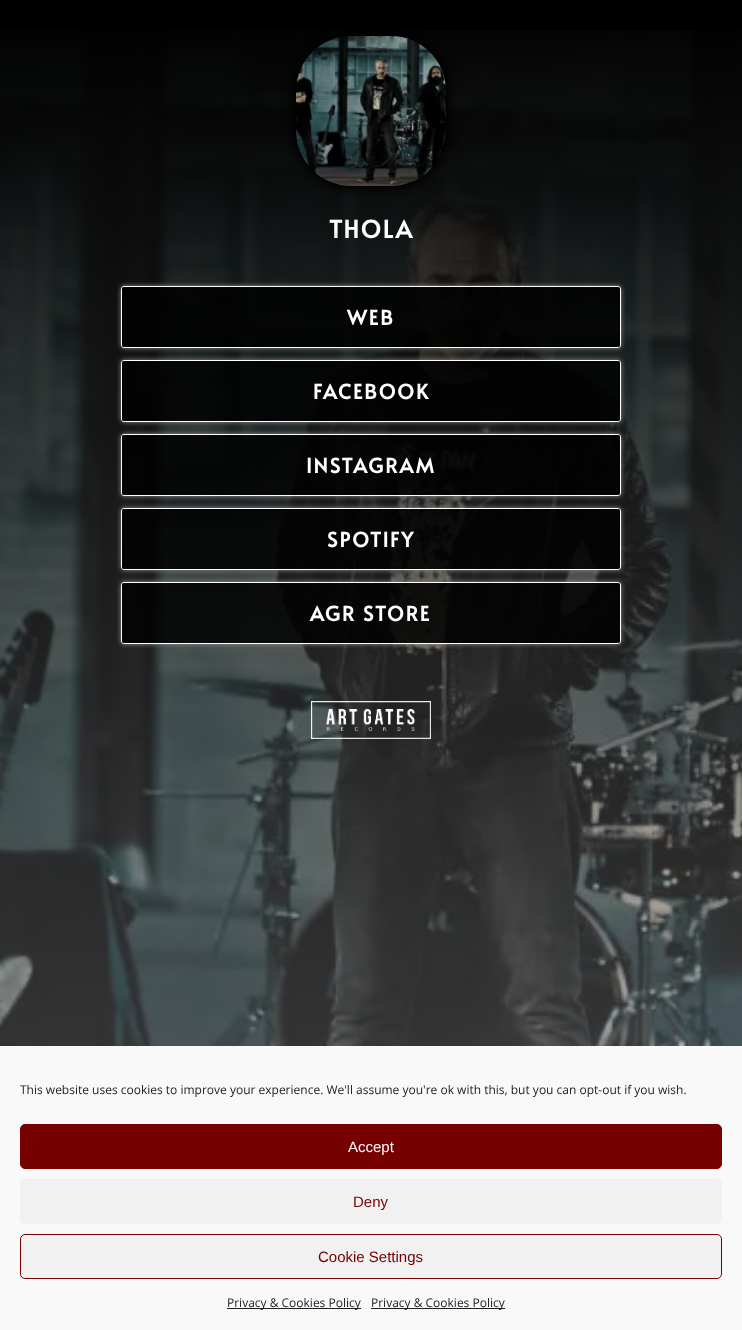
<!DOCTYPE html>
<meta charset="utf-8">
<style>body { margin: 0 } canvas { display: block }</style>
<canvas id="canvas" width="742" height="1330"></canvas>
<script type="module">
  const canvas = document.getElementById("canvas");
  const g = canvas.getContext("2d");
  g.miterLimit = 4;
  g.fontKerning = "normal";
  function drawText(s, x, y, [font, color]) {
    g.font = font;
    g.fillStyle = color;
    g.fillText(s, x, y);
  }
  function fillBox(x, y, w, h, color) {
    g.fillStyle = color;
    g.fillRect(x, y, w, h);
  }
  function fillRounded(x, y, w, h, r, color) {
    g.fillStyle = color;
    g.beginPath();
    g.roundRect(x, y, w, h, r);
    g.fill();
  }
  async function drawPicture(src, x, y, w, h) {
    const img = new Image();
    img.src = src;
    await img.decode();
    g.drawImage(img, x, y, w, h);
  }

  const s1 = ["bold 24px Alata", "#FFFFFF"];
  const s2 = ["bold 20px Alata", "#FFFFFF"];
  const s3 = ["12px Open Sans", "#191E23"];
  const s4 = ["15px Liberation Sans", "#FFFFFF"];
  const s5 = ["15px Liberation Sans", "#770000"];

  fillBox(0, 0, 742, 1330, "#000000");
  await drawPicture("pic1.png", 0, 30, 742, 1016);
  g.filter = "blur(4px)";
  g.beginPath();
  g.roundRect(293, 33, 156, 156, 58);
  g.fill();
  g.filter = "none";
  fillRounded(296, 36, 150, 150, 55, "#000000");
  await drawPicture("pic2.png", 296, 36, 150, 150);
  g.letterSpacing = "2px";
  drawText("THOLA", 329, 238, s1);
  g.save();
  g.beginPath();
  g.moveTo(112, 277);
  g.lineTo(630, 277);
  g.lineTo(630, 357);
  g.lineTo(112, 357);
  g.closePath();
  g.moveTo(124, 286);
  g.lineTo(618, 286);
  g.bezierCurveTo(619.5, 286, 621, 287.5, 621, 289);
  g.lineTo(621, 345);
  g.bezierCurveTo(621, 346.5, 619.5, 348, 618, 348);
  g.lineTo(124, 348);
  g.bezierCurveTo(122.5, 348, 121, 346.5, 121, 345);
  g.lineTo(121, 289);
  g.bezierCurveTo(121, 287.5, 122.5, 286, 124, 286);
  g.closePath();
  g.clip("evenodd");
  g.fillStyle = "#8C8C8C";
  g.filter = "blur(2.5px)";
  g.beginPath();
  g.roundRect(121, 286, 500, 62, 3);
  g.fill();
  g.filter = "none";
  g.restore();
  g.beginPath();
  g.roundRect(121.5, 286.5, 499, 61, 2.5);
  g.strokeStyle = "#FFFFFF";
  g.stroke();
  fillRounded(122, 287, 498, 60, 2, "rgba(0, 0, 0, 0.85)");
  drawText("WEB", 347, 325, s2);
  g.save();
  g.beginPath();
  g.moveTo(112, 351);
  g.lineTo(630, 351);
  g.lineTo(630, 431);
  g.lineTo(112, 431);
  g.closePath();
  g.moveTo(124, 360);
  g.lineTo(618, 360);
  g.bezierCurveTo(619.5, 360, 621, 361.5, 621, 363);
  g.lineTo(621, 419);
  g.bezierCurveTo(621, 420.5, 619.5, 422, 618, 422);
  g.lineTo(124, 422);
  g.bezierCurveTo(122.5, 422, 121, 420.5, 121, 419);
  g.lineTo(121, 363);
  g.bezierCurveTo(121, 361.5, 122.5, 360, 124, 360);
  g.closePath();
  g.clip("evenodd");
  g.fillStyle = "#8C8C8C";
  g.filter = "blur(2.5px)";
  g.beginPath();
  g.roundRect(121, 360, 500, 62, 3);
  g.fill();
  g.filter = "none";
  g.restore();
  g.beginPath();
  g.roundRect(121.5, 360.5, 499, 61, 2.5);
  g.stroke();
  fillRounded(122, 361, 498, 60, 2, "rgba(0, 0, 0, 0.85)");
  drawText("FACEBOOK", 313, 399, s2);
  g.save();
  g.beginPath();
  g.moveTo(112, 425);
  g.lineTo(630, 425);
  g.lineTo(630, 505);
  g.lineTo(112, 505);
  g.closePath();
  g.moveTo(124, 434);
  g.lineTo(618, 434);
  g.bezierCurveTo(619.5, 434, 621, 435.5, 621, 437);
  g.lineTo(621, 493);
  g.bezierCurveTo(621, 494.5, 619.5, 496, 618, 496);
  g.lineTo(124, 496);
  g.bezierCurveTo(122.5, 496, 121, 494.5, 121, 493);
  g.lineTo(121, 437);
  g.bezierCurveTo(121, 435.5, 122.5, 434, 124, 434);
  g.closePath();
  g.clip("evenodd");
  g.fillStyle = "#8C8C8C";
  g.filter = "blur(2.5px)";
  g.beginPath();
  g.roundRect(121, 434, 500, 62, 3);
  g.fill();
  g.filter = "none";
  g.restore();
  g.beginPath();
  g.roundRect(121.5, 434.5, 499, 61, 2.5);
  g.stroke();
  fillRounded(122, 435, 498, 60, 2, "rgba(0, 0, 0, 0.85)");
  drawText("INSTAGRAM", 306, 473, s2);
  g.save();
  g.beginPath();
  g.moveTo(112, 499);
  g.lineTo(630, 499);
  g.lineTo(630, 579);
  g.lineTo(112, 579);
  g.closePath();
  g.moveTo(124, 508);
  g.lineTo(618, 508);
  g.bezierCurveTo(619.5, 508, 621, 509.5, 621, 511);
  g.lineTo(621, 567);
  g.bezierCurveTo(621, 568.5, 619.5, 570, 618, 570);
  g.lineTo(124, 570);
  g.bezierCurveTo(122.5, 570, 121, 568.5, 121, 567);
  g.lineTo(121, 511);
  g.bezierCurveTo(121, 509.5, 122.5, 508, 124, 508);
  g.closePath();
  g.clip("evenodd");
  g.fillStyle = "#8C8C8C";
  g.filter = "blur(2.5px)";
  g.beginPath();
  g.roundRect(121, 508, 500, 62, 3);
  g.fill();
  g.filter = "none";
  g.restore();
  g.beginPath();
  g.roundRect(121.5, 508.5, 499, 61, 2.5);
  g.stroke();
  fillRounded(122, 509, 498, 60, 2, "rgba(0, 0, 0, 0.85)");
  drawText("SPOTIFY", 327, 547, s2);
  g.save();
  g.beginPath();
  g.moveTo(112, 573);
  g.lineTo(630, 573);
  g.lineTo(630, 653);
  g.lineTo(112, 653);
  g.closePath();
  g.moveTo(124, 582);
  g.lineTo(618, 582);
  g.bezierCurveTo(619.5, 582, 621, 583.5, 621, 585);
  g.lineTo(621, 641);
  g.bezierCurveTo(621, 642.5, 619.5, 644, 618, 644);
  g.lineTo(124, 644);
  g.bezierCurveTo(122.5, 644, 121, 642.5, 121, 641);
  g.lineTo(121, 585);
  g.bezierCurveTo(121, 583.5, 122.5, 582, 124, 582);
  g.closePath();
  g.clip("evenodd");
  g.fillStyle = "#8C8C8C";
  g.filter = "blur(2.5px)";
  g.beginPath();
  g.roundRect(121, 582, 500, 62, 3);
  g.fill();
  g.filter = "none";
  g.restore();
  g.beginPath();
  g.roundRect(121.5, 582.5, 499, 61, 2.5);
  g.stroke();
  fillRounded(122, 583, 498, 60, 2, "rgba(0, 0, 0, 0.85)");
  drawText("AGR STORE", 310, 621, s2);
  await drawPicture("pic3.png", 311, 701, 120, 38);
  fillBox(0, 1046, 742, 284, "#F9F9F9");
  g.letterSpacing = "0px";
  drawText("This website uses cookies to improve your experience. We'll assume you're ok with this, but you can opt-out if you wish.", 20, 1094, s3);
  g.fillStyle = "#770000";
  g.beginPath();
  g.roundRect(20.5, 1124.5, 701, 44, 4.5);
  g.fill();
  g.strokeStyle = "#770000";
  g.stroke();
  drawText("Accept", 348, 1152, s4);
  fillRounded(20, 1179, 702, 45, 5, "#F1F1F1");
  drawText("Deny", 353, 1207, s5);
  g.fillStyle = "#F1F1F1";
  g.beginPath();
  g.roundRect(20.5, 1234.5, 701, 44, 4.5);
  g.fill();
  g.stroke();
  drawText("Cookie Settings", 318, 1262, s5);
  fillBox(227, 1308, 134, 1, "#191E23");
  drawText("Privacy & Cookies Policy", 227, 1307, s3);
  fillBox(371, 1308, 134, 1, "#191E23");
  drawText("Privacy & Cookies Policy", 371, 1307, s3);
</script>
